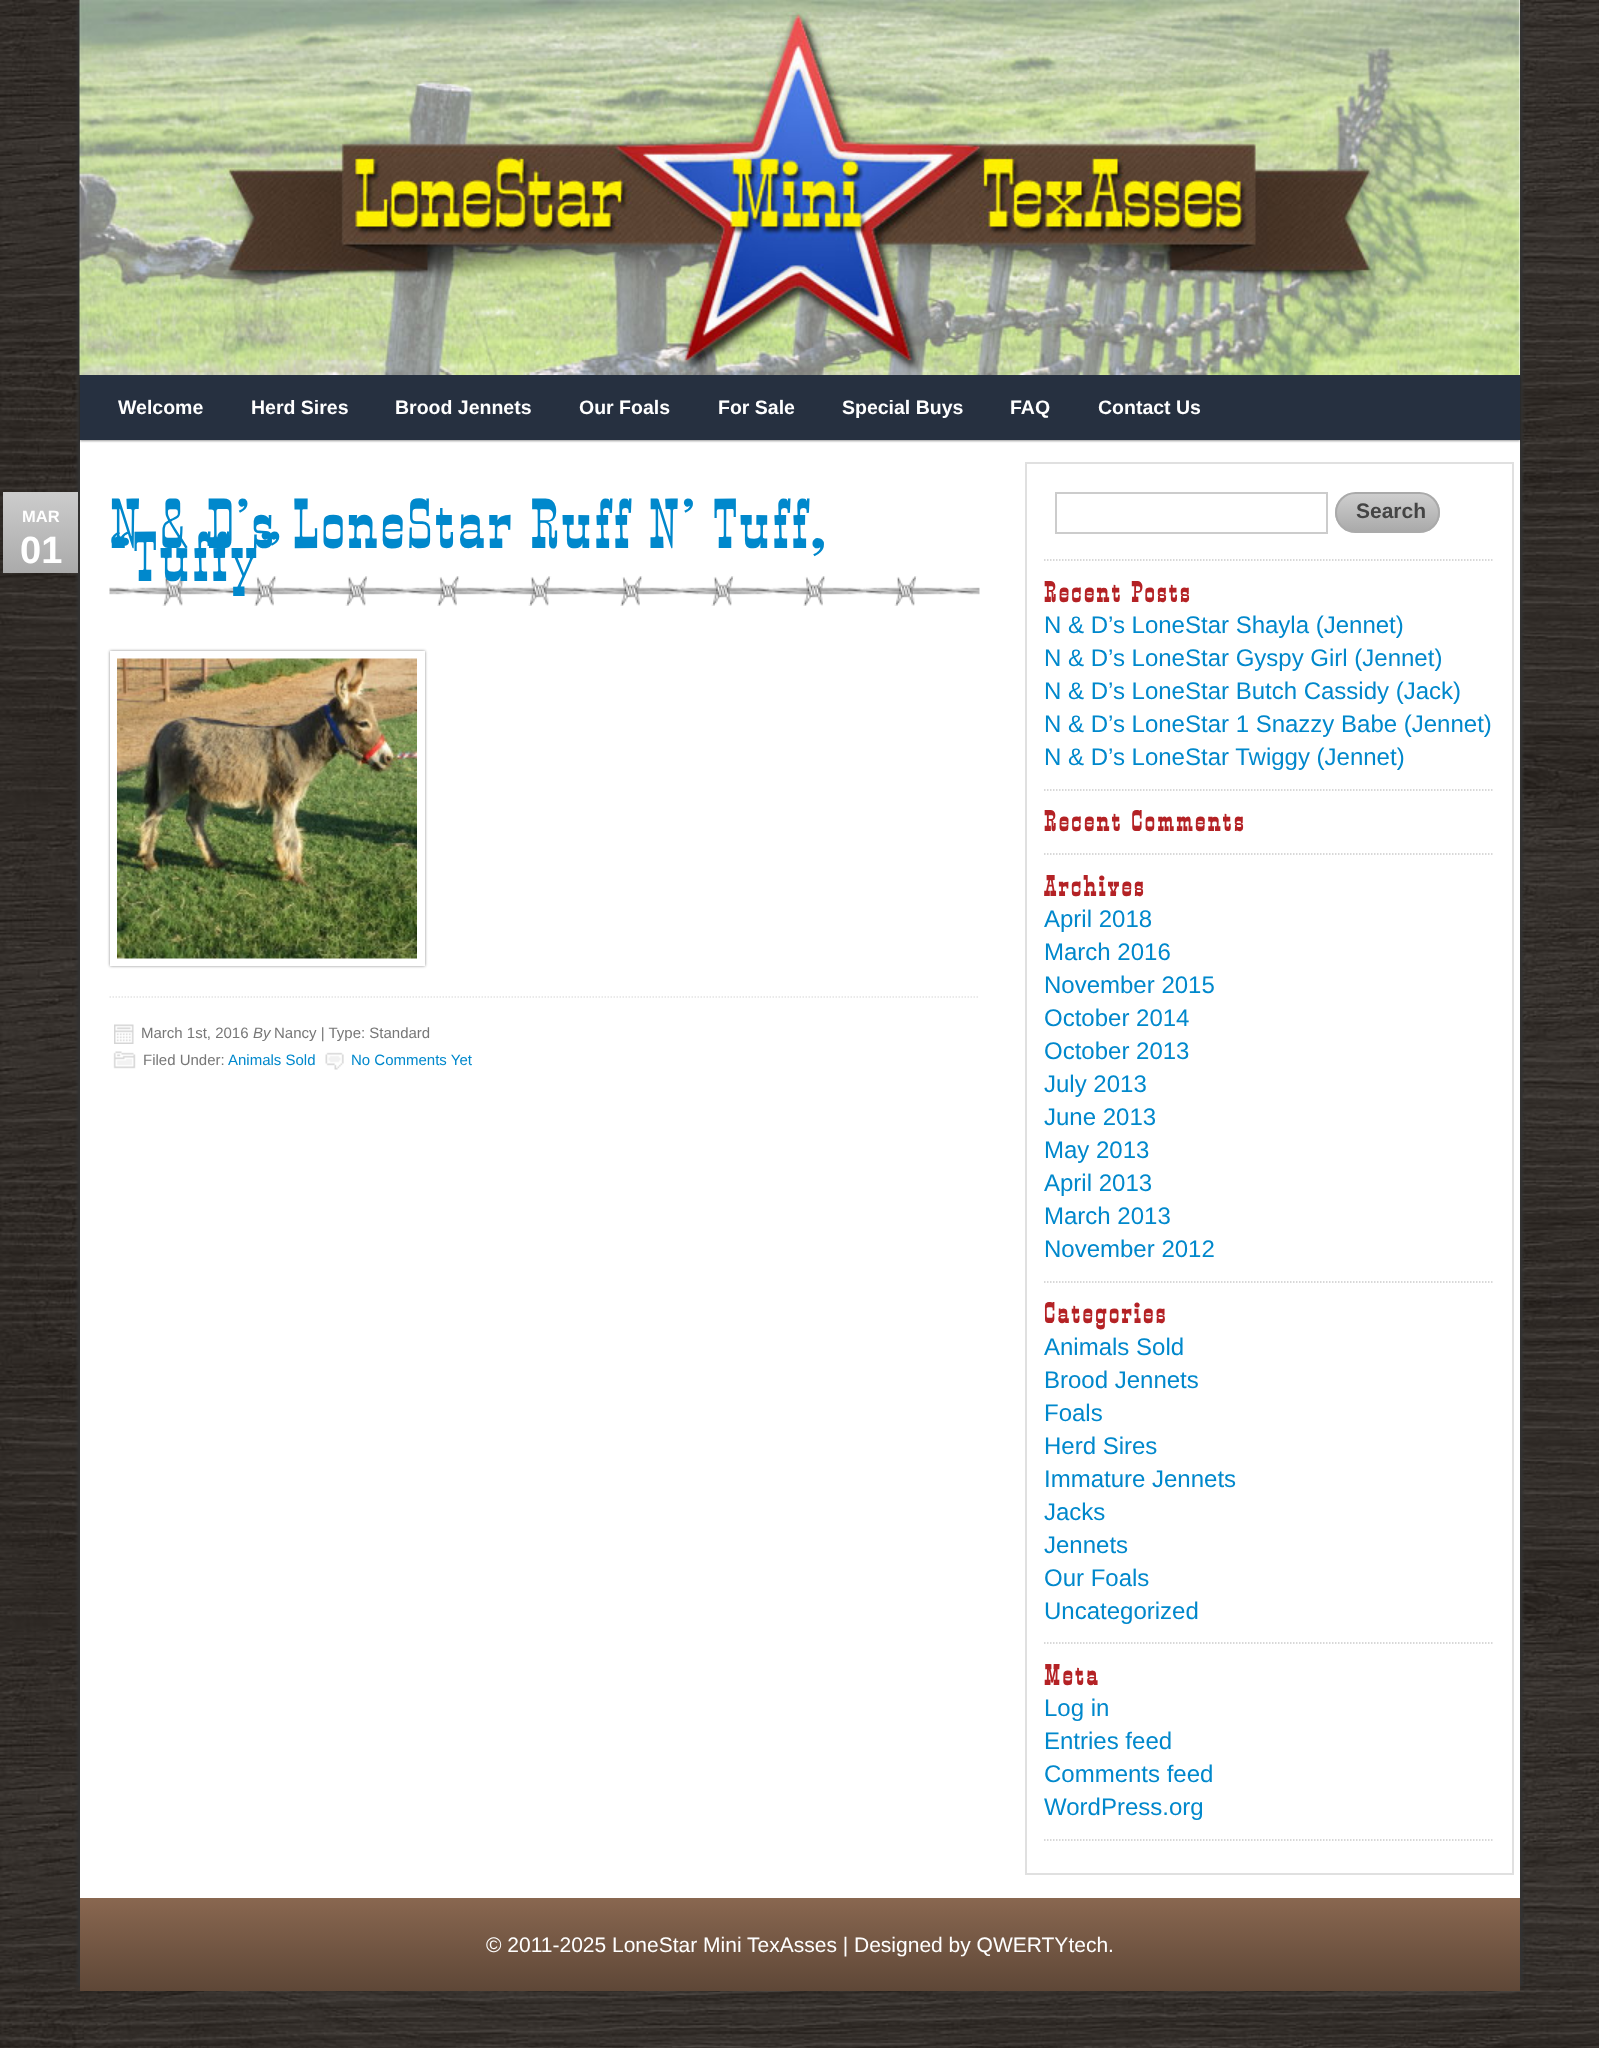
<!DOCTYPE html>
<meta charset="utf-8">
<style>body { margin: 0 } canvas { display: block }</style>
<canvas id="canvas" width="1599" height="2048"></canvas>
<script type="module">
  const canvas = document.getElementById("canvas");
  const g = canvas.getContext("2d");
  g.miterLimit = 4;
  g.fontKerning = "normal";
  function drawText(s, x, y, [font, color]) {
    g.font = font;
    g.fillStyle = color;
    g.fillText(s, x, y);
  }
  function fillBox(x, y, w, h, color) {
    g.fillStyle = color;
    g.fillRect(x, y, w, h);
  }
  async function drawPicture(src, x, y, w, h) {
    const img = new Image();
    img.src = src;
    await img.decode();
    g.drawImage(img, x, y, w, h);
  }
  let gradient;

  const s1 = ["bold 19.5px Liberation Sans", "#FFFFFF"];
  const s2 = ["bold 16.5px Liberation Sans", "#FFFFFF"];
  const s3 = ["bold 38px Liberation Sans", "#FFFFFF"];
  const s4 = ["66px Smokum", "#0088CC"];
  const s5 = ["15px Liberation Sans", "#777777"];
  const s6 = ["italic 15px Liberation Sans", "#777777"];
  const s7 = ["15px Liberation Sans", "#0088CC"];
  const s8 = ["bold 21px Liberation Sans", "#444444"];
  const s9 = ["bold 27px Smokum", "#B42225"];
  const s10 = ["24px Liberation Sans", "#0088CC"];
  const s11 = ["21px Liberation Sans", "#FFFFFF"];

  fillBox(0, 0, 1599, 2048, "#FFFFFF");
  await drawPicture("pic1.png", 0, 0, 1599, 2048);
  g.fillStyle = "#333333";
  g.filter = "blur(1.5px)";
  g.beginPath();
  g.rect(77, 5, 1431, 1981);
  g.fill();
  g.filter = "none";
  g.filter = "blur(1.5px)";
  g.beginPath();
  g.rect(92, 5, 1431, 1981);
  g.fill();
  g.filter = "none";
  fillBox(80, 0, 1440, 1898, "#FFFFFF");
  await drawPicture("pic2.png", 79, 0, 1441, 375);
  g.fillStyle = "rgba(0, 0, 0, 0.4)";
  g.filter = "blur(1px)";
  g.beginPath();
  g.rect(80, 377, 1440, 64);
  g.fill();
  g.filter = "none";
  fillBox(80, 375, 1440, 65, "#263040");
  drawText("Welcome", 118, 414, s1);
  drawText("Herd Sires", 251, 414, s1);
  drawText("Brood Jennets", 395, 414, s1);
  drawText("Our Foals", 579, 414, s1);
  drawText("For Sale", 718, 414, s1);
  drawText("Special Buys", 842, 414, s1);
  drawText("FAQ", 1010, 414, s1);
  drawText("Contact Us", 1098, 414, s1);
  gradient = g.createLinearGradient(40, 492, 41, 573);
  gradient.addColorStop(0, "#CCCCCC");
  gradient.addColorStop(1, "#AAAAAA");
  g.fillStyle = gradient;
  g.fillRect(3, 492, 75, 81);
  drawText("MAR", 22, 522, s2);
  drawText("01", 20, 563, s3);
  await drawPicture("pic3.png", 109, 576, 871, 30);
  g.letterSpacing = "3px";
  drawText("N & D’s LoneStar Ruff N’ Tuff,", 110, 548, s4);
  drawText("“Tuffy”", 110, 581, s4);
  g.fillStyle = "#888888";
  g.filter = "blur(1.5px)";
  g.beginPath();
  g.rect(110, 651, 315, 315);
  g.fill();
  g.filter = "none";
  g.strokeStyle = "#FFFFFF";
  g.lineWidth = 8;
  g.strokeRect(114, 655, 307, 307);
  await drawPicture("pic4.png", 117, 658, 300, 301);
  g.beginPath();
  g.moveTo(109.5, 997);
  g.lineTo(979.5, 997);
  g.strokeStyle = "#E3E3E3";
  g.lineWidth = 1.5;
  g.setLineDash([1.5, 1.5]);
  g.stroke();
  await drawPicture("pic5.png", 114, 1024, 20, 20);
  g.letterSpacing = "0px";
  drawText("March 1st, 2016", 141, 1038, s5);
  drawText("By", 253, 1038, s6);
  drawText("Nancy | Type: Standard", 274, 1038, s5);
  await drawPicture("pic6.png", 113, 1051, 23, 18);
  drawText("Filed Under:", 143, 1065, s5);
  drawText("Animals Sold", 228, 1065, s7);
  await drawPicture("pic7.png", 325, 1052, 19, 18);
  drawText("No Comments Yet", 351, 1065, s7);
  g.strokeStyle = "#E0E0E0";
  g.lineWidth = 2;
  g.setLineDash([]);
  g.strokeRect(1026, 463, 487, 1411);
  g.beginPath();
  g.moveTo(1044, 560);
  g.lineTo(1494, 560);
  g.strokeStyle = "#CCCCCC";
  g.lineWidth = 1.5;
  g.setLineDash([1.5, 1.5]);
  g.stroke();
  g.lineWidth = 2;
  g.setLineDash([]);
  g.strokeRect(1056, 493, 271, 40);
  g.save();
  g.beginPath();
  g.roundRect(1335, 492, 105, 41, 20.5);
  g.clip();
  gradient = g.createLinearGradient(1337, 531, 1337, 494);
  gradient.addColorStop(0, "#AAAAAA");
  gradient.addColorStop(1, "#CECECE");
  g.fillStyle = gradient;
  g.fillRect(1335, 494, 105, 37);
  g.restore();
  g.beginPath();
  g.roundRect(1336, 493, 103, 39, 19.5);
  g.strokeStyle = "#AAAAAA";
  g.stroke();
  drawText("Search", 1356, 518, s8);
  g.beginPath();
  g.moveTo(1044, 790);
  g.lineTo(1494, 790);
  g.strokeStyle = "#CCCCCC";
  g.lineWidth = 1.5;
  g.setLineDash([1.5, 1.5]);
  g.stroke();
  g.letterSpacing = "3px";
  drawText("Recent Posts", 1044, 602, s9);
  g.letterSpacing = "0px";
  drawText("N & D’s LoneStar Shayla (Jennet)", 1044, 633, s10);
  drawText("N & D’s LoneStar Gyspy Girl (Jennet)", 1044, 666, s10);
  drawText("N & D’s LoneStar Butch Cassidy (Jack)", 1044, 699, s10);
  drawText("N & D’s LoneStar 1 Snazzy Babe (Jennet)", 1044, 732, s10);
  drawText("N & D’s LoneStar Twiggy (Jennet)", 1044, 765, s10);
  g.beginPath();
  g.moveTo(1044, 854);
  g.lineTo(1494, 854);
  g.stroke();
  g.letterSpacing = "3px";
  drawText("Recent Comments", 1044, 831, s9);
  g.beginPath();
  g.moveTo(1044, 1282);
  g.lineTo(1494, 1282);
  g.stroke();
  drawText("Archives", 1044, 896, s9);
  g.letterSpacing = "0px";
  drawText("April 2018", 1044, 927, s10);
  drawText("March 2016", 1044, 960, s10);
  drawText("November 2015", 1044, 993, s10);
  drawText("October 2014", 1044, 1026, s10);
  drawText("October 2013", 1044, 1059, s10);
  drawText("July 2013", 1044, 1092, s10);
  drawText("June 2013", 1044, 1125, s10);
  drawText("May 2013", 1044, 1158, s10);
  drawText("April 2013", 1044, 1191, s10);
  drawText("March 2013", 1044, 1224, s10);
  drawText("November 2012", 1044, 1257, s10);
  g.beginPath();
  g.moveTo(1044, 1643);
  g.lineTo(1494, 1643);
  g.stroke();
  g.letterSpacing = "3px";
  drawText("Categories", 1044, 1323, s9);
  g.letterSpacing = "0px";
  drawText("Animals Sold", 1044, 1355, s10);
  drawText("Brood Jennets", 1044, 1388, s10);
  drawText("Foals", 1044, 1421, s10);
  drawText("Herd Sires", 1044, 1454, s10);
  drawText("Immature Jennets", 1044, 1487, s10);
  drawText("Jacks", 1044, 1520, s10);
  drawText("Jennets", 1044, 1553, s10);
  drawText("Our Foals", 1044, 1586, s10);
  drawText("Uncategorized", 1044, 1619, s10);
  g.beginPath();
  g.moveTo(1044, 1840);
  g.lineTo(1494, 1840);
  g.stroke();
  g.letterSpacing = "3px";
  drawText("Meta", 1044, 1685, s9);
  g.letterSpacing = "0px";
  drawText("Log in", 1044, 1716, s10);
  drawText("Entries feed", 1044, 1749, s10);
  drawText("Comments feed", 1044, 1782, s10);
  drawText("WordPress.org", 1044, 1815, s10);
  gradient = g.createLinearGradient(800, 1898, 800, 1991);
  gradient.addColorStop(0, "#896750");
  gradient.addColorStop(1, "#5E4737");
  g.fillStyle = gradient;
  g.fillRect(80, 1898, 1440, 93);
  drawText("© 2011-2025 LoneStar Mini TexAsses | Designed by QWERTYtech.", 486, 1952, s11);
</script>
